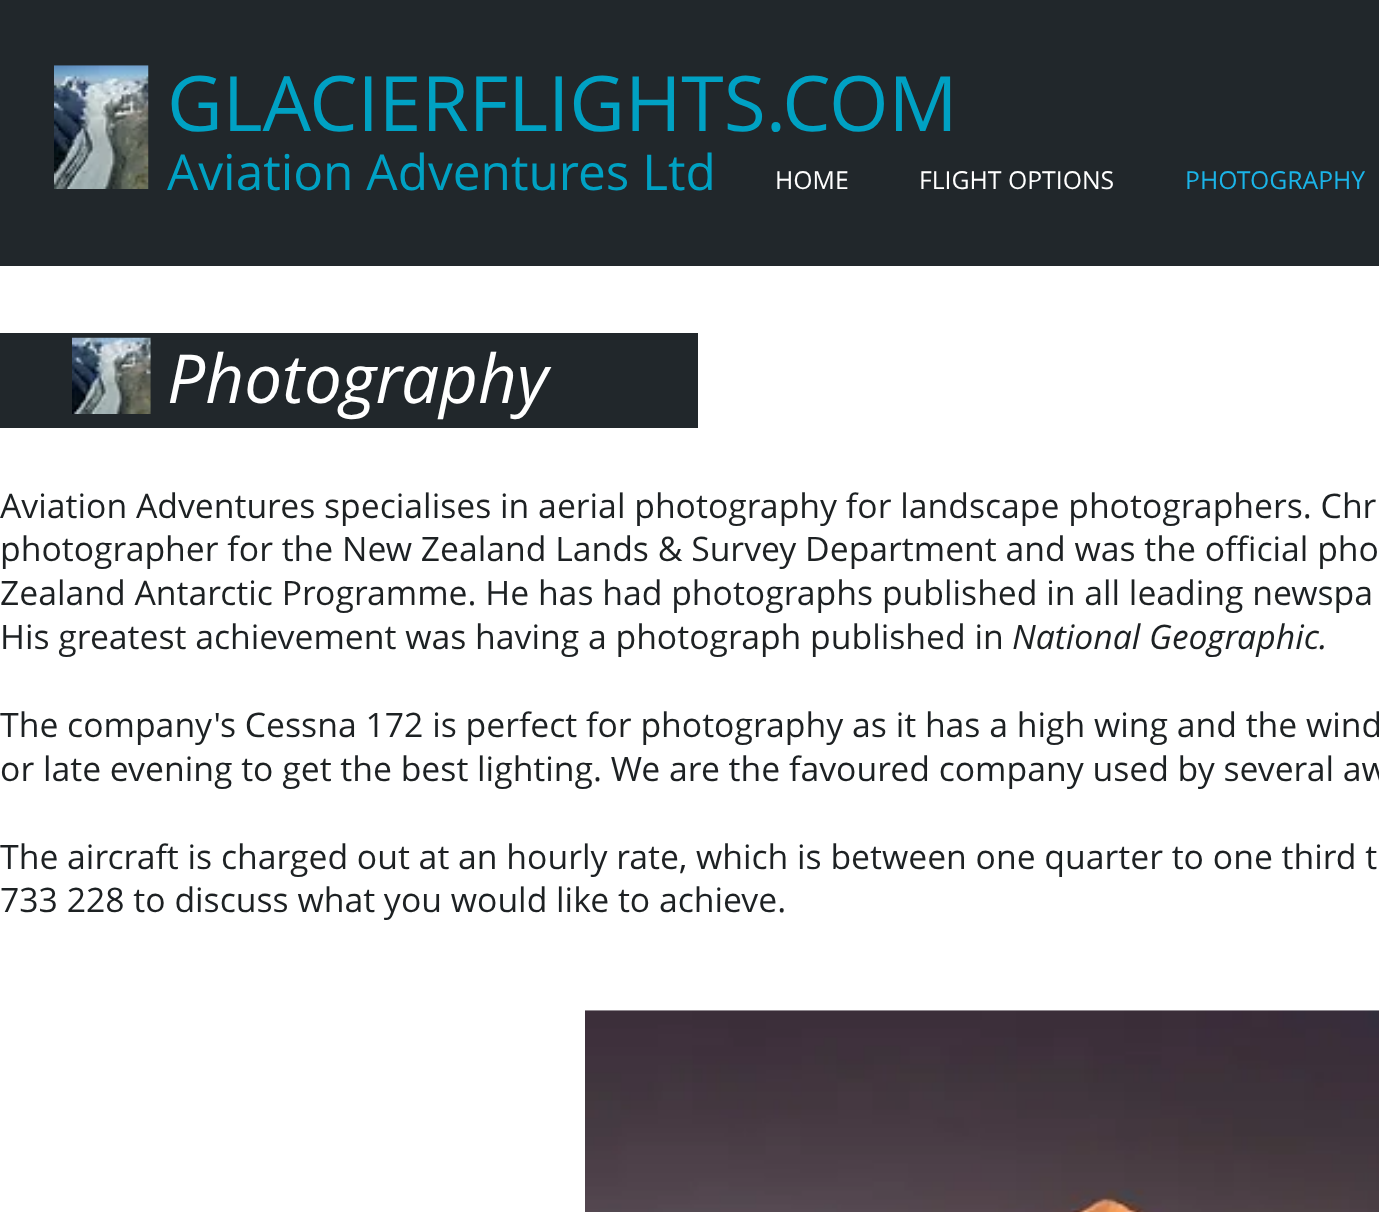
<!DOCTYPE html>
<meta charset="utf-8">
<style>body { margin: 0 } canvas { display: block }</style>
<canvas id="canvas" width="1379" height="1212"></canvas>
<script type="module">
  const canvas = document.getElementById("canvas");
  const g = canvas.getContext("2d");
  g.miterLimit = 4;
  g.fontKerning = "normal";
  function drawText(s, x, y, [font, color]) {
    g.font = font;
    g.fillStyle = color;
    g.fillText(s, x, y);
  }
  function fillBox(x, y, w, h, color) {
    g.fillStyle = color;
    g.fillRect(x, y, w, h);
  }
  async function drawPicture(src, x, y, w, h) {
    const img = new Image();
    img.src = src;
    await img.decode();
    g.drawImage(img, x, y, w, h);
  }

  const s1 = ["76.5px Open Sans", "#00A1C3"];
  const s2 = ["49.5px Open Sans", "#00A1C3"];
  const s3 = ["24.75px Open Sans", "#FFFFFF"];
  const s4 = ["24.75px Open Sans", "#1BB4E8"];
  const s5 = ["italic 67.5px Open Sans", "#FFFFFF"];
  const s6 = ["33.75px Open Sans", "#1D2123"];
  const s7 = ["italic 33.75px Open Sans", "#1D2123"];

  fillBox(0, 0, 1379, 1212, "#FFFFFF");
  fillBox(0, 0, 1379, 266, "#21272B");
  await drawPicture("pic1.png", 54, 65, 95, 124);
  drawText("GLACIERFLIGHTS.COM", 167, 131, s1);
  drawText("Aviation Adventures Ltd", 167, 190, s2);
  drawText("HOME", 775, 189, s3);
  drawText("FLIGHT OPTIONS", 919, 189, s3);
  drawText("PHOTOGRAPHY", 1185, 189, s4);
  fillBox(0, 333, 698, 95, "#21272B");
  await drawPicture("pic2.png", 72, 337, 79, 77);
  drawText("Photography", 167, 403, s5);
  drawText("Aviation Adventures specialises in aerial photography for landscape photographers. Chr", 0, 518, s6);
  drawText("photographer for the New Zealand Lands & Survey Department and was the official pho", 0, 561, s6);
  drawText("Zealand Antarctic Programme. He has had photographs published in all leading newspa", 0, 605, s6);
  drawText("His greatest achievement was having a photograph published in", 0, 649, s6);
  drawText("National Geographic.", 1012, 649, s7);
  drawText("The company's Cessna 172 is perfect for photography as it has a high wing and the wind", 0, 737, s6);
  drawText("or late evening to get the best lighting. We are the favoured company used by several aw", 0, 781, s6);
  drawText("The aircraft is charged out at an hourly rate, which is between one quarter to one third t", 0, 869, s6);
  drawText("733 228 to discuss what you would like to achieve.", 0, 912, s6);
  await drawPicture("pic3.png", 585, 1010, 794, 202);
</script>
